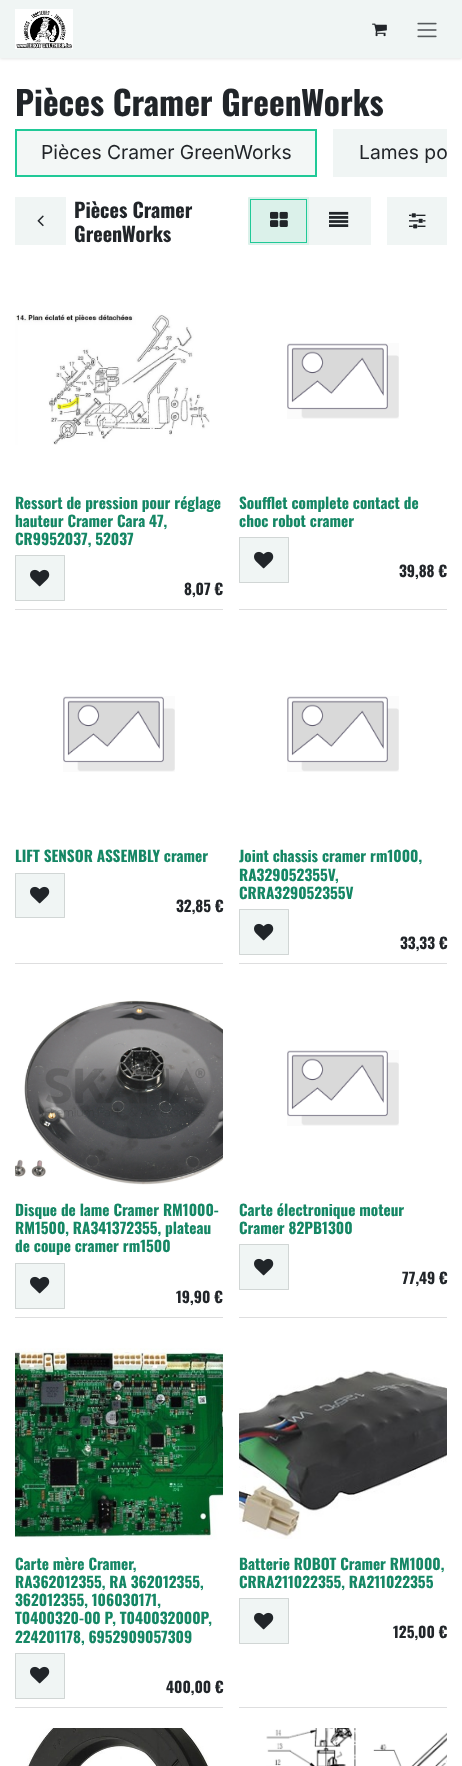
<!DOCTYPE html>
<meta charset="utf-8">
<style>body { margin: 0 } canvas { display: block }</style>
<canvas id="canvas" width="462" height="1766"></canvas>
<script type="module">
  const canvas = document.getElementById("canvas");
  const g = canvas.getContext("2d");
  g.miterLimit = 4;
  g.fontKerning = "normal";
  function drawText(s, x, y, [font, color]) {
    g.font = font;
    g.fillStyle = color;
    g.fillText(s, x, y);
  }
  function fillBox(x, y, w, h, color) {
    g.fillStyle = color;
    g.fillRect(x, y, w, h);
  }
  function fillRounded(x, y, w, h, r, color) {
    g.fillStyle = color;
    g.beginPath();
    g.roundRect(x, y, w, h, r);
    g.fill();
  }
  async function drawPicture(src, x, y, w, h) {
    const img = new Image();
    img.src = src;
    await img.decode();
    g.drawImage(img, x, y, w, h);
  }

  const s1 = ["bold 33.4px Oswald", "#212529"];
  const s2 = ["19.25px Inter", "#212529"];
  const s3 = ["bold 20px Oswald", "#212529"];
  const s4 = ["bold 15.25px Oswald", "#158765"];
  const s5 = ["bold 15.25px Oswald", "#212529"];

  fillBox(0, 0, 462, 1766, "#FFFFFF");
  g.fillStyle = "rgba(0, 0, 0, 0.1)";
  g.filter = "blur(1.5px)";
  g.beginPath();
  g.rect(0, 1, 462, 58);
  g.fill();
  g.filter = "none";
  fillBox(0, 0, 462, 58, "#F0F5F4");
  await drawPicture("pic1.png", 15, 9, 58, 40);
  await drawPicture("pic2.png", 372, 23, 15, 14);
  await drawPicture("pic3.png", 417, 22, 20, 16);
  drawText("Pièces Cramer GreenWorks", 15, 116, s1);
  g.fillStyle = "#F3F7F6";
  g.beginPath();
  g.rect(16, 130, 300, 46);
  g.fill();
  g.strokeStyle = "#20C997";
  g.lineWidth = 2;
  g.stroke();
  drawText("Pièces Cramer GreenWorks", 41, 159, s2);
  g.fillStyle = "#F0F5F4";
  g.beginPath();
  g.roundRect(333, 129, 114, 48, [1, 0, 0, 1]);
  g.fill();
  g.save();
  g.beginPath();
  g.rect(15, 129, 432, 52);
  g.clip();
  g.beginPath();
  g.rect(334, 130, 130, 46);
  g.strokeStyle = "#F0F5F4";
  g.stroke();
  g.restore();
  drawText("Lames po", 359, 159, s2);
  g.fillStyle = "#F0F5F4";
  g.beginPath();
  g.rect(16, 198, 49, 46);
  g.fill();
  g.strokeStyle = "#F0F5F4";
  g.stroke();
  await drawPicture("pic4.png", 37, 215, 7, 12);
  drawText("Pièces Cramer", 74, 218, s3);
  drawText("GreenWorks", 74, 242, s3);
  g.fillStyle = "#F0F5F4";
  g.beginPath();
  g.rect(308, 198, 62, 46);
  g.fill();
  g.stroke();
  g.fillStyle = "#DBF1EA";
  g.beginPath();
  g.roundRect(248, 197, 61, 48, [1, 0, 0, 1]);
  g.fill();
  g.strokeStyle = "#20C997";
  g.lineWidth = 1;
  g.strokeRect(250.5, 199.5, 56, 43);
  await drawPicture("pic5.png", 270, 211, 18, 16);
  await drawPicture("pic6.png", 329, 211, 20, 16);
  g.fillStyle = "#F0F5F4";
  g.beginPath();
  g.rect(388, 198, 58, 46);
  g.fill();
  g.strokeStyle = "#F0F5F4";
  g.lineWidth = 2;
  g.stroke();
  await drawPicture("pic7.png", 409, 213, 17, 16);
  fillBox(15, 609, 208, 1, "#DEDEDF");
  await drawPicture("pic8.png", 15, 314, 195, 131);
  drawText("Ressort de pression pour réglage", 15, 509, s4);
  drawText("hauteur Cramer Cara 47,", 15, 527, s4);
  drawText("CR9952037, 52037", 15, 545, s4);
  fillRounded(15, 555, 50, 46, 1, "#F0F5F4");
  g.strokeStyle = "rgba(33, 37, 41, 0.15)";
  g.lineWidth = 1;
  g.strokeRect(15.5, 555.5, 49, 45);
  await drawPicture("pic9.png", 30, 569, 20, 18);
  drawText("8,07 €", 184, 595, s5);
  fillBox(239, 609, 208, 1, "#DEDEDF");
  await drawPicture("pic10.png", 287, 343, 112, 76);
  drawText("Soufflet complete contact de", 239, 509, s4);
  drawText("choc robot cramer", 239, 527, s4);
  fillRounded(239, 537, 50, 46, 1, "#F0F5F4");
  g.strokeRect(239.5, 537.5, 49, 45);
  await drawPicture("pic9.png", 254, 551, 20, 18);
  drawText("39,88 €", 399, 577, s5);
  fillBox(15, 963, 208, 1, "#DEDEDF");
  await drawPicture("pic10.png", 63, 696, 112, 76);
  drawText("LIFT SENSOR ASSEMBLY cramer", 15, 862, s4);
  fillRounded(15, 873, 50, 45, 1, "#F0F5F4");
  g.strokeRect(15.5, 873.5, 49, 44);
  await drawPicture("pic9.png", 30, 886, 20, 18);
  drawText("32,85 €", 176, 912, s5);
  fillBox(239, 963, 208, 1, "#DEDEDF");
  await drawPicture("pic10.png", 287, 696, 112, 76);
  drawText("Joint chassis cramer rm1000,", 239, 862, s4);
  drawText("RA329052355V,", 239, 881, s4);
  drawText("CRRA329052355V", 239, 899, s4);
  fillRounded(239, 909, 50, 46, 1, "#F0F5F4");
  g.strokeRect(239.5, 909.5, 49, 45);
  await drawPicture("pic9.png", 254, 923, 20, 18);
  drawText("33,33 €", 400, 949, s5);
  fillBox(15, 1317, 208, 1, "#DEDEDF");
  await drawPicture("pic11.png", 15, 1000, 208, 185);
  drawText("Disque de lame Cramer RM1000-", 15, 1216, s4);
  drawText("RM1500, RA341372355, plateau", 15, 1234, s4);
  drawText("de coupe cramer rm1500", 15, 1252, s4);
  fillRounded(15, 1263, 50, 46, 1, "#F0F5F4");
  g.strokeRect(15.5, 1263.5, 49, 45);
  await drawPicture("pic9.png", 30, 1276, 20, 18);
  drawText("19,90 €", 176, 1303, s5);
  fillBox(239, 1317, 208, 1, "#DEDEDF");
  await drawPicture("pic10.png", 287, 1050, 112, 76);
  drawText("Carte électronique moteur", 239, 1216, s4);
  drawText("Cramer 82PB1300", 239, 1234, s4);
  fillRounded(239, 1244, 50, 46, 1, "#F0F5F4");
  g.strokeRect(239.5, 1244.5, 49, 45);
  await drawPicture("pic9.png", 254, 1258, 20, 18);
  drawText("77,49 €", 402, 1284, s5);
  fillBox(15, 1707, 208, 1, "#DEDEDF");
  await drawPicture("pic12.png", 15, 1348, 208, 192);
  drawText("Carte mère Cramer,", 15, 1570, s4);
  drawText("RA362012355, RA 362012355,", 15, 1588, s4);
  drawText("362012355, 106030171,", 15, 1606, s4);
  drawText("T0400320-00 P, T040032000P,", 15, 1624, s4);
  drawText("224201178, 6952909057309", 15, 1643, s4);
  fillRounded(15, 1653, 50, 46, 1, "#F0F5F4");
  g.strokeRect(15.5, 1653.5, 49, 45);
  await drawPicture("pic9.png", 30, 1666, 20, 18);
  drawText("400,00 €", 166, 1693, s5);
  fillBox(239, 1707, 208, 1, "#DEDEDF");
  await drawPicture("pic13.png", 239, 1370, 208, 169);
  drawText("Batterie ROBOT Cramer RM1000,", 239, 1570, s4);
  drawText("CRRA211022355, RA211022355", 239, 1588, s4);
  fillRounded(239, 1598, 50, 46, 1, "#F0F5F4");
  g.strokeRect(239.5, 1598.5, 49, 45);
  await drawPicture("pic9.png", 254, 1612, 20, 18);
  drawText("125,00 €", 393, 1638, s5);
  await drawPicture("pic14.png", 27, 1728, 182, 38);
  await drawPicture("pic15.png", 266, 1728, 181, 38);
</script>
